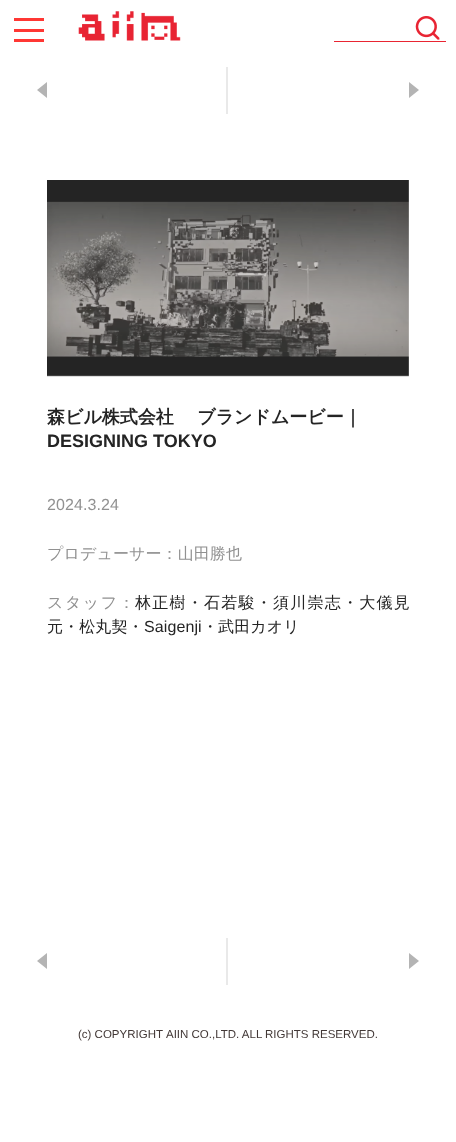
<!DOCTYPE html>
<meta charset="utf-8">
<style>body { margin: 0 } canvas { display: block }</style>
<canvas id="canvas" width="456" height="1142"></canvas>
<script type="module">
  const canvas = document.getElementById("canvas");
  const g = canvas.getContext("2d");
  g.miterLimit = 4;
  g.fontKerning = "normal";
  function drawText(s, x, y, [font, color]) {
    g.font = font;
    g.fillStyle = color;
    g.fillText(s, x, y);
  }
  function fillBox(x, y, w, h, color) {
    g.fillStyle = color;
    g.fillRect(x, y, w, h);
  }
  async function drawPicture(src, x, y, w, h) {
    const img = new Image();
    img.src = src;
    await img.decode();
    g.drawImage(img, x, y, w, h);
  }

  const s1 = ["bold 18px WenQuanYi Zen Hei", "#242424"];
  const s2 = ["bold 18px Liberation Sans", "#242424"];
  const s3 = ["16px Liberation Sans", "#919191"];
  const s4 = ["500 16px WenQuanYi Zen Hei", "#919191"];
  const s5 = ["500 16px WenQuanYi Zen Hei", "#242424"];
  const s6 = ["16px Liberation Sans", "#242424"];
  const s7 = ["11.5px Liberation Sans", "#423836"];

  fillBox(0, 0, 456, 1142, "#FFFFFF");
  fillBox(14, 18, 30, 3, "#FF3734");
  fillBox(14, 29, 30, 3, "#FF3734");
  fillBox(14, 39, 30, 3, "#FF3734");
  await drawPicture("pic1.png", 78, 11, 103, 30);
  fillBox(334, 41, 112, 1, "#E92532");
  await drawPicture("pic2.png", 415, 16, 25, 24);
  g.fillStyle = "#B4B4B4";
  g.beginPath();
  g.moveTo(47, 82);
  g.lineTo(47, 98);
  g.lineTo(37, 90);
  g.closePath();
  g.fill();
  fillBox(226, 67, 2, 47, "#E9E9E9");
  g.fillStyle = "#B4B4B4";
  g.beginPath();
  g.moveTo(409, 98);
  g.lineTo(409, 82);
  g.lineTo(419, 90);
  g.closePath();
  g.fill();
  await drawPicture("pic3.png", 47, 180, 362, 197);
  drawText("森ビル株式会社　 ブランドムービー｜", 47, 423, s1);
  drawText("DESIGNING TOKYO", 47, 447, s2);
  g.letterSpacing = "0.1px";
  drawText("2024.3.24", 47, 510, s3);
  drawText("プロデューサー：山田勝也", 47, 559, s4);
  g.letterSpacing = "1.5px";
  drawText("スタッフ：", 47, 608, s4);
  g.letterSpacing = "1.25px";
  drawText("林正樹・石若駿・須川崇志・大儀見", 135, 608, s5);
  g.letterSpacing = "0.1px";
  drawText("元・松丸契・", 47, 632, s5);
  drawText("Saigenji", 144, 632, s6);
  drawText("・武田カオリ", 202, 632, s5);
  g.fillStyle = "#B4B4B4";
  g.beginPath();
  g.moveTo(47, 953);
  g.lineTo(47, 969);
  g.lineTo(37, 961);
  g.closePath();
  g.fill();
  fillBox(226, 938, 2, 47, "#E9E9E9");
  g.fillStyle = "#B4B4B4";
  g.beginPath();
  g.moveTo(409, 969);
  g.lineTo(409, 953);
  g.lineTo(419, 961);
  g.closePath();
  g.fill();
  g.letterSpacing = "0px";
  drawText("(c) COPYRIGHT", 78, 1038, s7);
  drawText("AIIN CO.,LTD. ALL RIGHTS RESERVED.", 166, 1038, s7);
</script>
